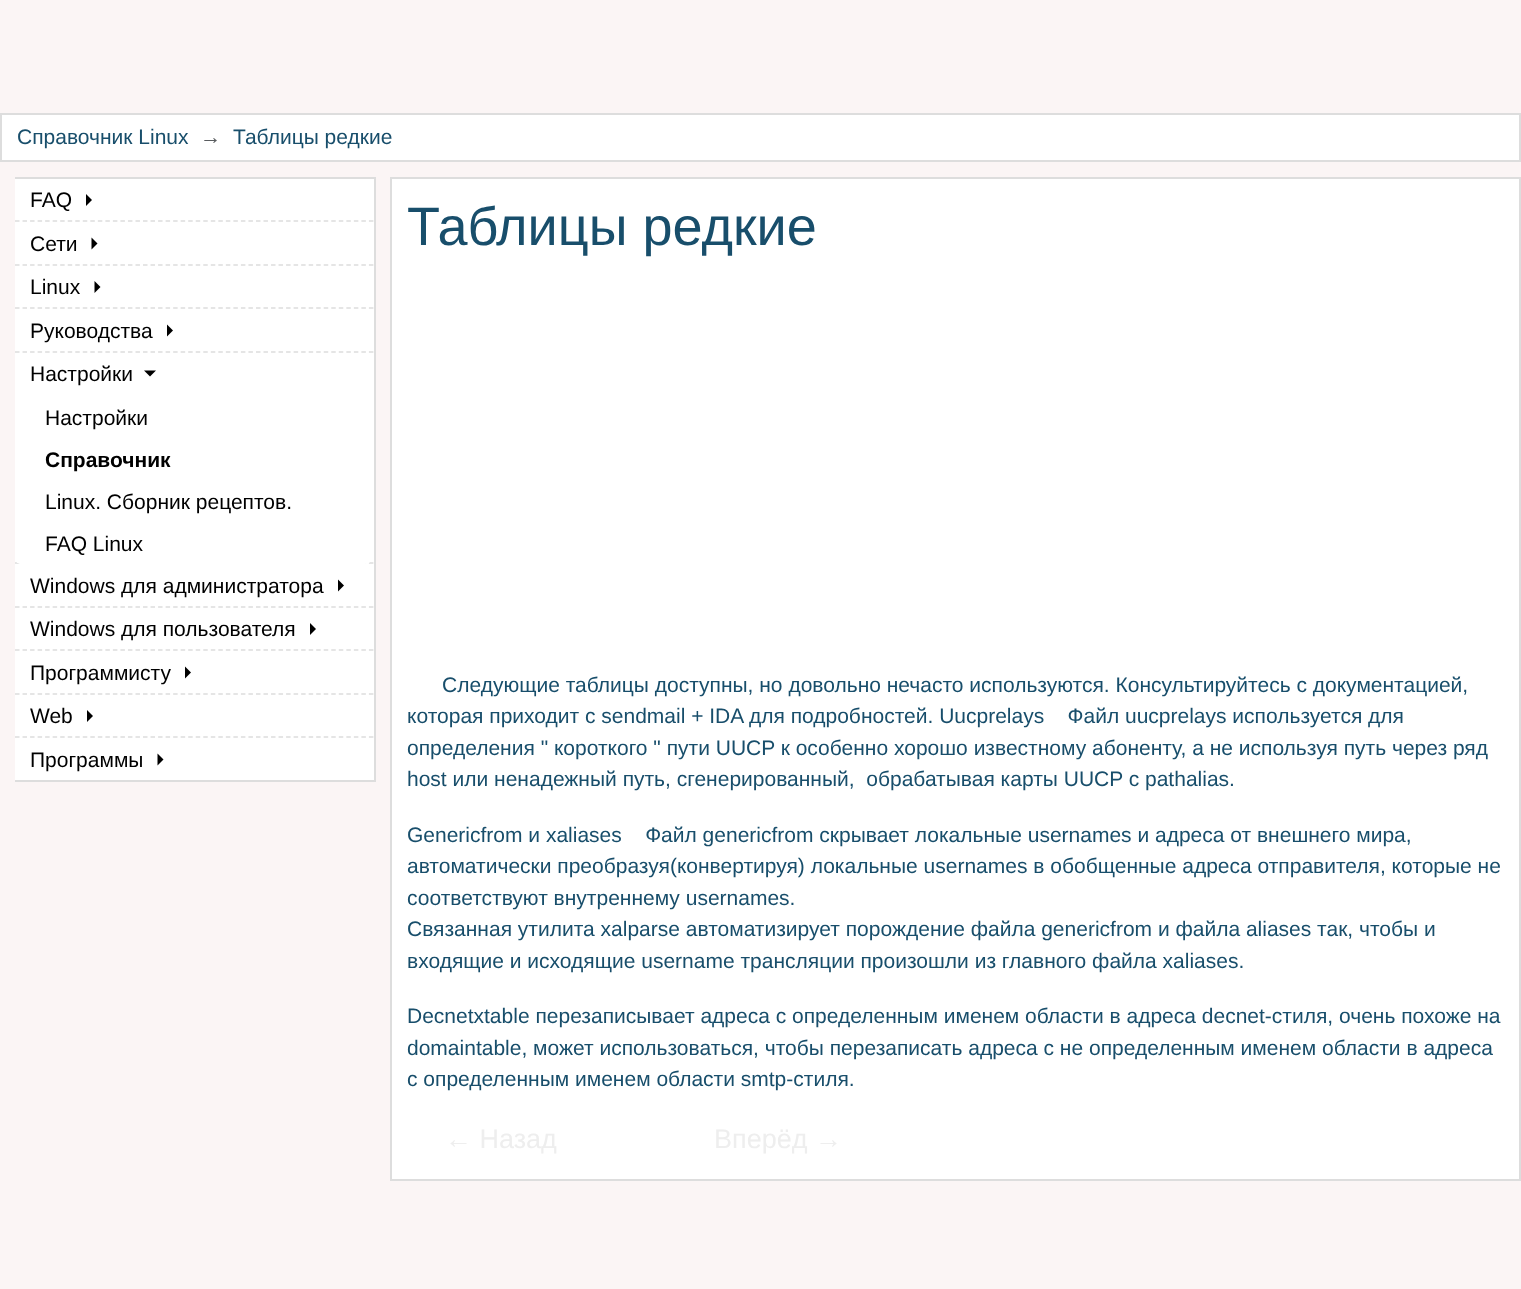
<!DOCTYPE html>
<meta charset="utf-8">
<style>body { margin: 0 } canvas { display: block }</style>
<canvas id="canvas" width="1521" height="1289"></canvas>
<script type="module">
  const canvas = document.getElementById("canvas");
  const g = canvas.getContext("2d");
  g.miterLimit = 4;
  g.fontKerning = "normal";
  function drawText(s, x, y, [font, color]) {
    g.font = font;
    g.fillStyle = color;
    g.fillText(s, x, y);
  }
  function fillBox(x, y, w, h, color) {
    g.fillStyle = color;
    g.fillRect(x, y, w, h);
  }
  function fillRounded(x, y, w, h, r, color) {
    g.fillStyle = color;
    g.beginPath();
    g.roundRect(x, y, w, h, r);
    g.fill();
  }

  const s1 = ["21px Liberation Sans", "#184E6B"];
  const s2 = ["21px Liberation Sans", "#595C5F"];
  const s3 = ["21px Liberation Sans", "#000000"];
  const s4 = ["bold 21px Liberation Sans", "#000000"];
  const s5 = ["54px Liberation Sans", "#184E6B"];
  const s6 = ["27px Liberation Sans", "#EEEEEE"];

  fillBox(0, 0, 1521, 1289, "#FBF5F5");
  g.fillStyle = "#FFFFFF";
  g.beginPath();
  g.rect(1, 114, 1519, 47);
  g.fill();
  g.strokeStyle = "#DDDDDD";
  g.lineWidth = 2;
  g.stroke();
  drawText("Справочник Linux", 17, 144, s1);
  drawText("→", 200, 144, s2);
  drawText("Таблицы редкие", 233, 144, s1);
  fillBox(15, 179, 359, 601, "#FFFFFF");
  fillBox(15, 177, 360, 2, "#DDDDDD");
  fillBox(374, 177, 2, 605, "#DDDDDD");
  fillBox(15, 780, 360, 2, "#DDDDDD");
  g.beginPath();
  g.moveTo(15, 221);
  g.lineTo(373.5, 221);
  g.lineWidth = 1.5;
  g.setLineDash([4.5, 3.03]);
  g.stroke();
  drawText("FAQ", 30, 207, s3);
  g.beginPath();
  g.moveTo(86, 206);
  g.lineTo(86, 194);
  g.lineTo(92, 200);
  g.closePath();
  g.fill();
  g.beginPath();
  g.moveTo(15, 265);
  g.lineTo(373.5, 265);
  g.stroke();
  drawText("Сети", 30, 251, s3);
  g.beginPath();
  g.moveTo(91.5, 249.5);
  g.lineTo(91.5, 237.5);
  g.lineTo(97.5, 243.5);
  g.closePath();
  g.fill();
  g.beginPath();
  g.moveTo(15, 308);
  g.lineTo(373.5, 308);
  g.stroke();
  drawText("Linux", 30, 294, s3);
  g.beginPath();
  g.moveTo(94.5, 293);
  g.lineTo(94.5, 281);
  g.lineTo(100.5, 287);
  g.closePath();
  g.fill();
  g.beginPath();
  g.moveTo(15, 352);
  g.lineTo(373.5, 352);
  g.stroke();
  drawText("Руководства", 30, 338, s3);
  g.beginPath();
  g.moveTo(167, 336.5);
  g.lineTo(167, 324.5);
  g.lineTo(173, 330.5);
  g.closePath();
  g.fill();
  g.beginPath();
  g.moveTo(15, 563);
  g.lineTo(373.5, 563);
  g.stroke();
  drawText("Настройки", 30, 381, s3);
  g.beginPath();
  g.moveTo(144, 370.5);
  g.lineTo(156, 370.5);
  g.lineTo(150, 376.5);
  g.closePath();
  g.fill();
  fillRounded(15, 396, 359, 168, 9, "#FFFFFF");
  drawText("Настройки", 45, 425, s3);
  drawText("Справочник", 45, 467, s4);
  drawText("Linux. Сборник рецептов.", 45, 509, s3);
  g.fillStyle = "#FFFFFF";
  g.beginPath();
  g.roundRect(15, 522, 297, 42, [0, 0, 6, 6]);
  g.fill();
  drawText("FAQ Linux", 45, 551, s3);
  g.beginPath();
  g.moveTo(15, 607);
  g.lineTo(373.5, 607);
  g.stroke();
  drawText("Windows для администратора", 30, 593, s3);
  g.beginPath();
  g.moveTo(338, 591.5);
  g.lineTo(338, 579.5);
  g.lineTo(344, 585.5);
  g.closePath();
  g.fill();
  g.beginPath();
  g.moveTo(15, 650);
  g.lineTo(373.5, 650);
  g.stroke();
  drawText("Windows для пользователя", 30, 636, s3);
  g.beginPath();
  g.moveTo(310, 635);
  g.lineTo(310, 623);
  g.lineTo(316, 629);
  g.closePath();
  g.fill();
  g.beginPath();
  g.moveTo(15, 694);
  g.lineTo(373.5, 694);
  g.stroke();
  drawText("Программисту", 30, 680, s3);
  g.beginPath();
  g.moveTo(185, 678.5);
  g.lineTo(185, 666.5);
  g.lineTo(191, 672.5);
  g.closePath();
  g.fill();
  g.beginPath();
  g.moveTo(15, 737);
  g.lineTo(373.5, 737);
  g.stroke();
  drawText("Web", 30, 723, s3);
  g.beginPath();
  g.moveTo(87, 722);
  g.lineTo(87, 710);
  g.lineTo(93, 716);
  g.closePath();
  g.fill();
  drawText("Программы", 30, 767, s3);
  g.beginPath();
  g.moveTo(157.5, 765.5);
  g.lineTo(157.5, 753.5);
  g.lineTo(163.5, 759.5);
  g.closePath();
  g.fill();
  g.fillStyle = "#FFFFFF";
  g.beginPath();
  g.rect(391, 178, 1129, 1002);
  g.fill();
  g.lineWidth = 2;
  g.setLineDash([]);
  g.stroke();
  drawText("Таблицы редкие", 407, 245, s5);
  drawText("Следующие таблицы доступны, но довольно нечасто используются. Консультируйтесь с документацией,", 442, 692, s1);
  drawText("которая приходит с sendmail + IDA для подробностей. Uucprelays    Файл uucprelays используется для", 407, 723, s1);
  drawText("определения \" короткого \" пути UUCP к особенно хорошо известному абоненту, а не используя путь через ряд", 407, 755, s1);
  drawText("host или ненадежный путь, сгенерированный,  обрабатывая карты UUCP с pathalias.", 407, 786, s1);
  drawText("Genericfrom и xaliases    Файл genericfrom скрывает локальные usernames и адреса от внешнего мира,", 407, 842, s1);
  drawText("автоматически преобразуя(конвертируя) локальные usernames в обобщенные адреса отправителя, которые не", 407, 873, s1);
  drawText("соответствуют внутреннему usernames.", 407, 905, s1);
  drawText("Связанная утилита xalparse автоматизирует порождение файла genericfrom и файла aliases так, чтобы и", 407, 936, s1);
  drawText("входящие и исходящие username трансляции произошли из главного файла xaliases.", 407, 968, s1);
  drawText("Decnetxtable перезаписывает адреса с определенным именем области в адреса decnet-стиля, очень похоже на", 407, 1023, s1);
  drawText("domaintable, может использоваться, чтобы перезаписать адреса с не определенным именем области в адреса", 407, 1055, s1);
  drawText("с определенным именем области smtp-стиля.", 407, 1086, s1);
  drawText("← Назад", 445, 1148, s6);
  drawText("Вперёд →", 714, 1148, s6);
</script>
